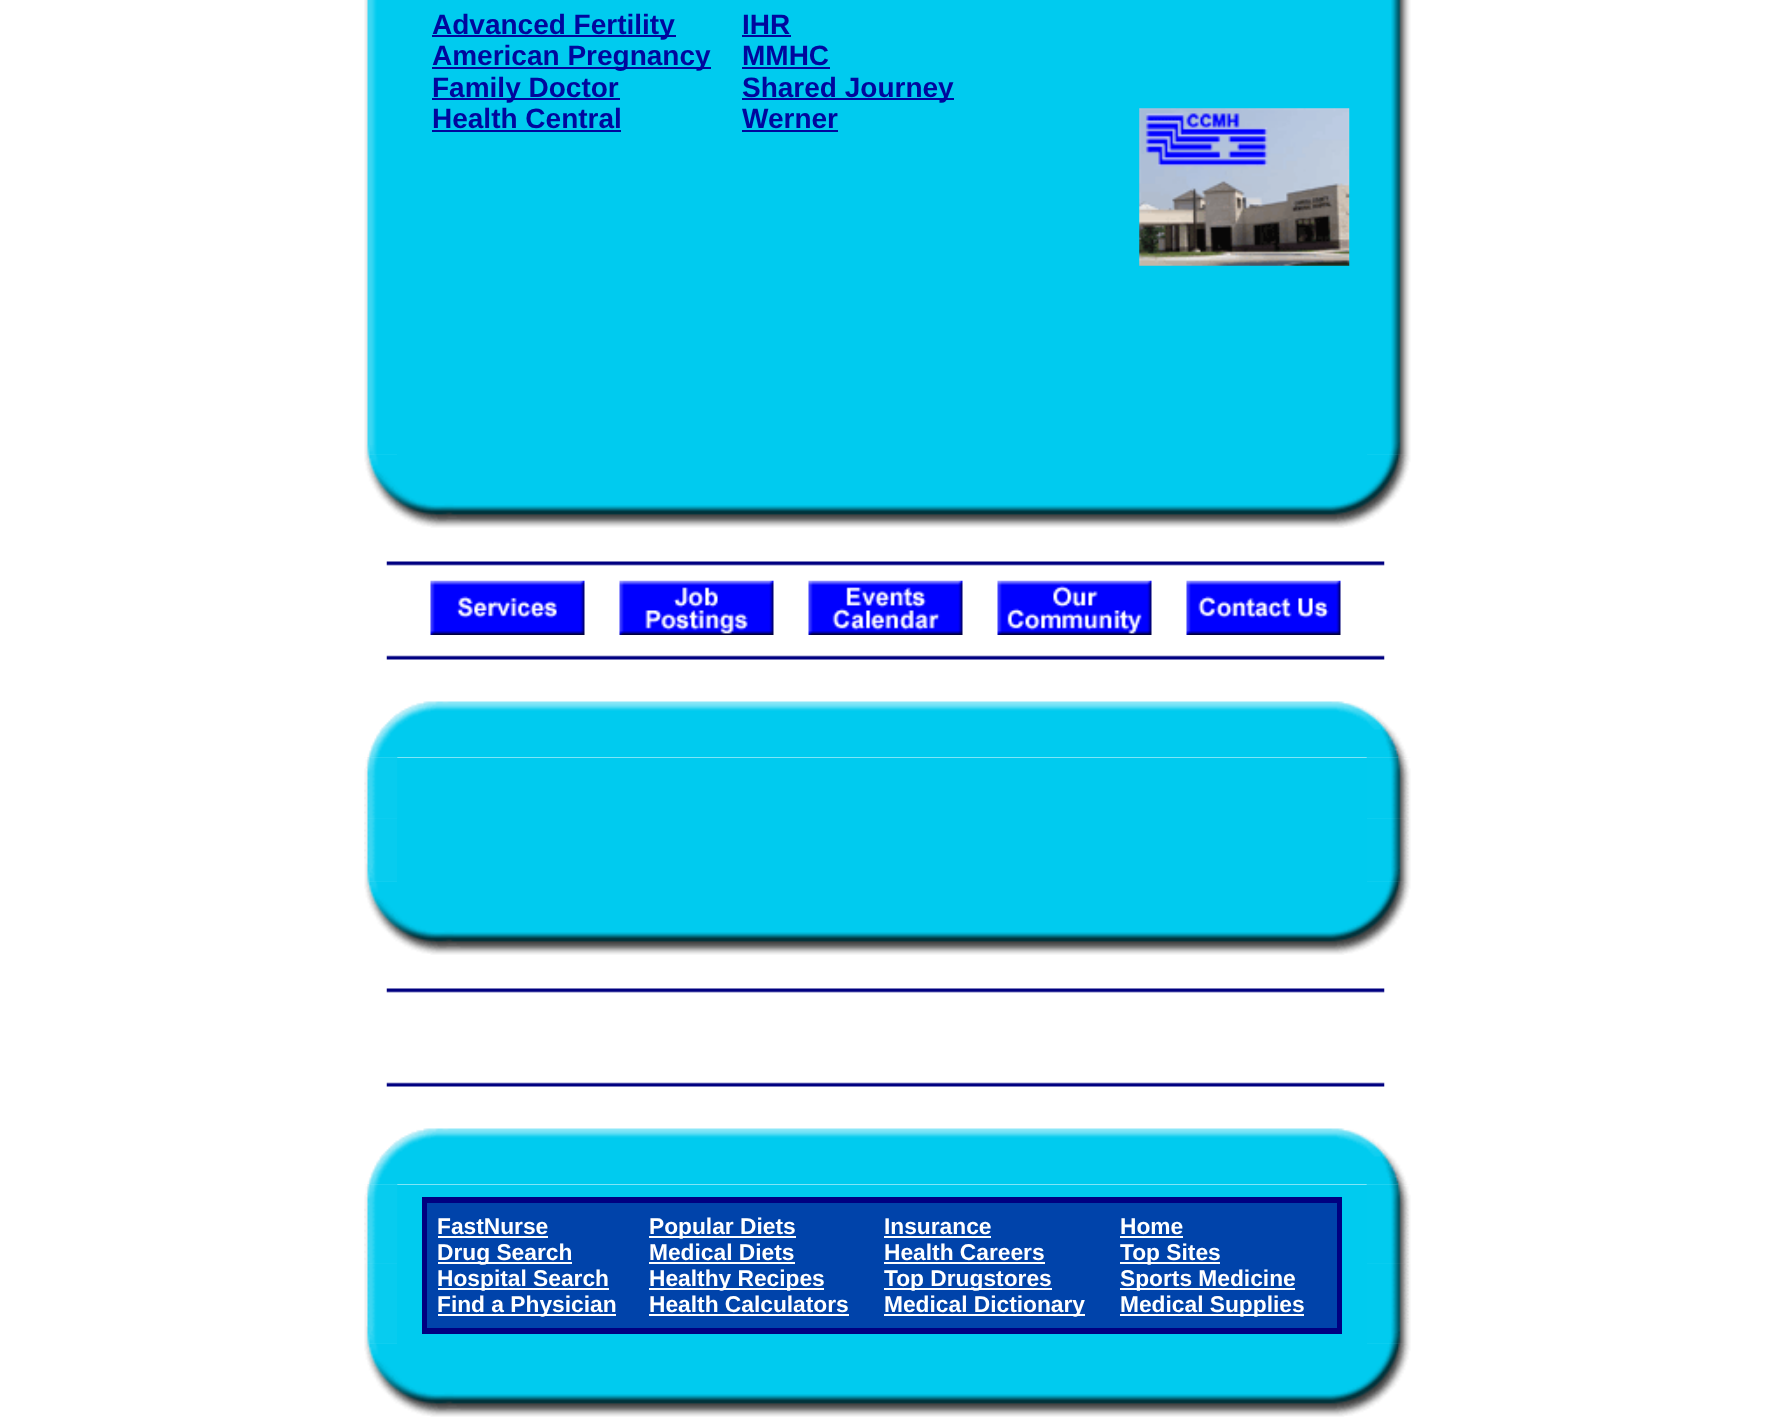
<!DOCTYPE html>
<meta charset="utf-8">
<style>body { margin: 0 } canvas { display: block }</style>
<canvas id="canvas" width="1771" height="1420"></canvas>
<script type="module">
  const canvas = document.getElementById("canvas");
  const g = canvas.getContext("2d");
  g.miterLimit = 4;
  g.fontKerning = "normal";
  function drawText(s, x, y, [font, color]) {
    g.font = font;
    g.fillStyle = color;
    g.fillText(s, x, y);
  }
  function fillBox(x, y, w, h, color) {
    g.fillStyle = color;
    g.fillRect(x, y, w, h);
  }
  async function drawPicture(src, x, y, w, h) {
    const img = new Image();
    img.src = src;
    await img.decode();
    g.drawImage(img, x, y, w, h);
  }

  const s1 = ["bold 28px Liberation Sans", "#00079D"];
  const s2 = ["bold 22.75px Liberation Sans", "#FFFFFF"];

  fillBox(0, 0, 1771, 1420, "#FFFFFF");
  await drawPicture("pic1.png", 364, 0, 33, 455);
  await drawPicture("pic2.png", 366, 445, 31, 10);
  await drawPicture("pic3.png", 1367, 0, 44, 455);
  await drawPicture("pic4.png", 1367, 240, 42, 215);
  fillBox(397, 0, 970, 455, "#00CBEF");
  fillBox(432, 35, 244, 2, "#00079D");
  drawText("Advanced Fertility", 432, 34, s1);
  fillBox(432, 67, 279, 2, "#00079D");
  drawText("American Pregnancy", 432, 65, s1);
  fillBox(432, 98, 188, 2, "#00079D");
  drawText("Family Doctor", 432, 97, s1);
  drawText("Health Central", 432, 128, s1);
  fillBox(432, 130, 189, 2, "#00079D");
  drawText("IHR", 742, 34, s1);
  fillBox(742, 35, 49, 2, "#00079D");
  drawText("MMHC", 742, 65, s1);
  fillBox(742, 67, 88, 2, "#00079D");
  fillBox(742, 98, 212, 2, "#00079D");
  drawText("Shared Journey", 742, 97, s1);
  drawText("Werner", 742, 128, s1);
  fillBox(742, 130, 96, 2, "#00079D");
  await drawPicture("pic5.png", 1139, 108, 211, 158);
  await drawPicture("pic6.png", 364, 454, 1047, 74);
  await drawPicture("pic7.png", 386, 561, 999, 5);
  await drawPicture("pic8.png", 430, 580, 155, 55);
  await drawPicture("pic9.png", 619, 580, 155, 55);
  await drawPicture("pic10.png", 808, 580, 155, 55);
  await drawPicture("pic11.png", 997, 580, 155, 55);
  await drawPicture("pic12.png", 1186, 580, 155, 55);
  await drawPicture("pic13.png", 386, 655, 999, 5);
  await drawPicture("pic15.png", 364, 757, 34, 62);
  fillBox(397, 758, 970, 124, "#00CBEF");
  await drawPicture("pic17.png", 1366, 757, 45, 62);
  await drawPicture("pic14.png", 365, 701, 1044, 57);
  await drawPicture("pic19.png", 364, 818, 33, 64);
  await drawPicture("pic16.png", 364, 757, 34, 62);
  await drawPicture("pic21.png", 1367, 818, 44, 64);
  await drawPicture("pic18.png", 1366, 757, 45, 62);
  await drawPicture("pic20.png", 364, 818, 33, 64);
  await drawPicture("pic22.png", 1367, 819, 42, 63);
  await drawPicture("pic23.png", 364, 881, 1047, 74);
  await drawPicture("pic7.png", 386, 988, 999, 5);
  await drawPicture("pic13.png", 386, 1082, 999, 5);
  await drawPicture("pic24.png", 364, 1184, 34, 80);
  fillBox(397, 1185, 970, 159, "#00CBEF");
  await drawPicture("pic26.png", 1366, 1184, 45, 80);
  await drawPicture("pic14.png", 365, 1128, 1044, 57);
  await drawPicture("pic28.png", 364, 1263, 33, 81);
  await drawPicture("pic25.png", 364, 1184, 34, 80);
  fillBox(427, 1203, 910, 125, "#0043AA");
  g.strokeStyle = "#000080";
  g.lineWidth = 4;
  g.strokeRect(424, 1199, 916, 133);
  g.lineWidth = 2;
  g.strokeRect(426, 1202, 912, 127);
  drawText("FastNurse", 437, 1234, s2);
  fillBox(438, 1236, 110, 2, "#FFFFFF");
  fillBox(438, 1262, 134, 2, "#FFFFFF");
  drawText("Drug Search", 437, 1260, s2);
  fillBox(438, 1288, 171, 2, "#FFFFFF");
  drawText("Hospital Search", 437, 1286, s2);
  fillBox(438, 1314, 178, 2, "#FFFFFF");
  drawText("Find a Physician", 437, 1312, s2);
  fillBox(649, 1236, 147, 2, "#FFFFFF");
  drawText("Popular Diets", 649, 1234, s2);
  drawText("Medical Diets", 649, 1260, s2);
  fillBox(649, 1262, 146, 2, "#FFFFFF");
  fillBox(649, 1288, 175, 2, "#FFFFFF");
  drawText("Healthy Recipes", 649, 1286, s2);
  drawText("Health Calculators", 649, 1312, s2);
  fillBox(649, 1314, 200, 2, "#FFFFFF");
  drawText("Insurance", 884, 1234, s2);
  fillBox(884, 1236, 107, 2, "#FFFFFF");
  drawText("Health Careers", 884, 1260, s2);
  fillBox(884, 1262, 161, 2, "#FFFFFF");
  fillBox(884, 1288, 168, 2, "#FFFFFF");
  drawText("Top Drugstores", 884, 1286, s2);
  fillBox(884, 1314, 201, 2, "#FFFFFF");
  drawText("Medical Dictionary", 884, 1312, s2);
  drawText("Home", 1120, 1234, s2);
  fillBox(1120, 1236, 63, 2, "#FFFFFF");
  fillBox(1120, 1262, 100, 2, "#FFFFFF");
  drawText("Top Sites", 1120, 1260, s2);
  fillBox(1120, 1288, 175, 2, "#FFFFFF");
  drawText("Sports Medicine", 1120, 1286, s2);
  fillBox(1120, 1314, 184, 2, "#FFFFFF");
  drawText("Medical Supplies", 1120, 1312, s2);
  await drawPicture("pic30.png", 1367, 1263, 44, 81);
  await drawPicture("pic27.png", 1366, 1184, 45, 80);
  await drawPicture("pic29.png", 366, 1263, 31, 81);
  await drawPicture("pic31.png", 1367, 1263, 42, 81);
  await drawPicture("pic32.png", 364, 1343, 1047, 74);
</script>
